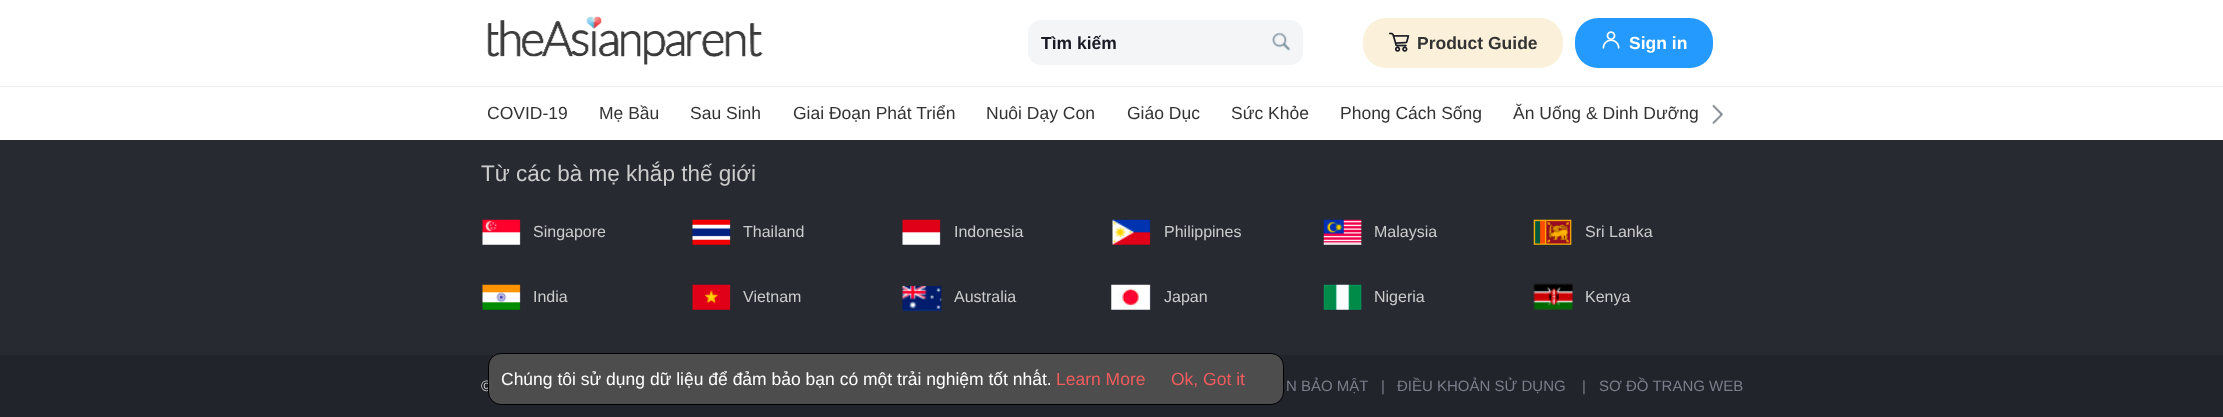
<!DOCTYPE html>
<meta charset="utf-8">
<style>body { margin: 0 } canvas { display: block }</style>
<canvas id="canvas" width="2223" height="417"></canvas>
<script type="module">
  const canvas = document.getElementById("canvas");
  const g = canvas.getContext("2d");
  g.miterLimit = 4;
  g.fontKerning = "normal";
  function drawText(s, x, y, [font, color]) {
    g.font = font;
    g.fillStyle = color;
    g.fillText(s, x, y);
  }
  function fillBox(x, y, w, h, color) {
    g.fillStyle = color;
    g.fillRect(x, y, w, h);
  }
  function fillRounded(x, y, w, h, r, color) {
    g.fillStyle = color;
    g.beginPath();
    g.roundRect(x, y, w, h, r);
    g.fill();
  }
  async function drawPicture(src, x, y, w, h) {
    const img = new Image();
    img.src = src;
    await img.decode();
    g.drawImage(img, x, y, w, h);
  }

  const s1 = ["bold 17.5px Liberation Sans", "#191B24"];
  const s2 = ["bold 17.5px Liberation Sans", "#333333"];
  const s3 = ["bold 17.5px Liberation Sans", "#FFFFFF"];
  const s4 = ["17.5px Liberation Sans", "#333333"];
  const s5 = ["22.5px Liberation Sans", "#CCCCCC"];
  const s6 = ["16px Liberation Sans", "#CCCCCC"];
  const s7 = ["15px Liberation Sans", "#CCCCCC"];
  const s8 = ["15px Liberation Sans", "#7B7D8A"];
  const s9 = ["17.5px Liberation Sans", "#FFFFFF"];
  const s10 = ["17.5px Liberation Sans", "#F05C5D"];

  fillBox(0, 0, 2223, 417, "#272A31");
  fillBox(0, 0, 2223, 140, "#FFFFFF");
  fillBox(0, 86, 2223, 1, "#EEEEEE");
  await drawPicture("pic1.png", 487, 16, 276, 49);
  fillRounded(1028, 20, 275, 45, 13, "#F4F5F7");
  drawText("Tìm kiếm", 1041, 49, s1);
  await drawPicture("pic2.png", 1272, 32, 19, 19);
  fillRounded(1363, 18, 200, 50, 23, "#FBF0DA");
  await drawPicture("pic3.png", 1388, 32, 22, 20);
  drawText("Product Guide", 1417, 49, s2);
  fillRounded(1575, 18, 138, 50, 23, "#249AFF");
  await drawPicture("pic4.png", 1602, 31, 18, 18);
  drawText("Sign in", 1629, 49, s3);
  g.save();
  g.beginPath();
  g.rect(488, 89, 1250, 50);
  g.clip();
  drawText("COVID-19", 487, 119, s4);
  g.restore();
  drawText("Mẹ Bầu", 599, 119, s4);
  drawText("Sau Sinh", 690, 119, s4);
  drawText("Giai Đoạn Phát Triển", 793, 119, s4);
  drawText("Nuôi Dạy Con", 986, 119, s4);
  drawText("Giáo Dục", 1127, 119, s4);
  drawText("Sức Khỏe", 1231, 119, s4);
  drawText("Phong Cách Sống", 1340, 119, s4);
  drawText("Ăn Uống & Dinh Dưỡng", 1513, 119, s4);
  await drawPicture("pic5.png", 1712, 104, 11, 21);
  drawText("Từ các bà mẹ khắp thế giới", 481, 181, s5);
  await drawPicture("pic6.png", 482, 219, 39, 26);
  drawText("Singapore", 533, 237, s6);
  await drawPicture("pic7.png", 692, 219, 39, 26);
  drawText("Thailand", 743, 237, s6);
  await drawPicture("pic8.png", 902, 219, 39, 26);
  drawText("Indonesia", 954, 237, s6);
  await drawPicture("pic9.png", 1112, 219, 39, 26);
  drawText("Philippines", 1164, 237, s6);
  await drawPicture("pic10.png", 1323, 219, 39, 26);
  drawText("Malaysia", 1374, 237, s6);
  await drawPicture("pic11.png", 1533, 219, 39, 26);
  drawText("Sri Lanka", 1585, 237, s6);
  await drawPicture("pic12.png", 482, 284, 39, 26);
  drawText("India", 533, 302, s6);
  await drawPicture("pic13.png", 692, 284, 39, 26);
  drawText("Vietnam", 743, 302, s6);
  await drawPicture("pic14.png", 902, 285, 40, 27);
  drawText("Australia", 954, 302, s6);
  await drawPicture("pic15.png", 1111, 284, 40, 26);
  drawText("Japan", 1164, 302, s6);
  await drawPicture("pic16.png", 1323, 284, 39, 26);
  drawText("Nigeria", 1374, 302, s6);
  await drawPicture("pic17.png", 1533, 283, 40, 27);
  drawText("Kenya", 1585, 302, s6);
  fillBox(0, 355, 2223, 62, "#21242B");
  drawText("©", 481, 391, s7);
  drawText("N BẢO MẬT", 1286, 391, s8);
  drawText("|", 1381, 391, s8);
  drawText("ĐIỀU KHOẢN SỬ DỤNG", 1397, 391, s8);
  drawText("|", 1582, 391, s8);
  drawText("SƠ ĐỒ TRANG WEB", 1599, 391, s8);
  g.fillStyle = "rgba(80, 80, 80, 0.95)";
  g.beginPath();
  g.roundRect(488.5, 353.5, 795, 51, 12.5);
  g.fill();
  g.strokeStyle = "#000000";
  g.stroke();
  drawText("Chúng tôi sử dụng dữ liệu để đảm bảo bạn có một trải nghiệm tốt nhất.", 501, 385, s9);
  drawText("Learn More", 1056, 385, s10);
  drawText("Ok, Got it", 1171, 385, s10);
</script>
